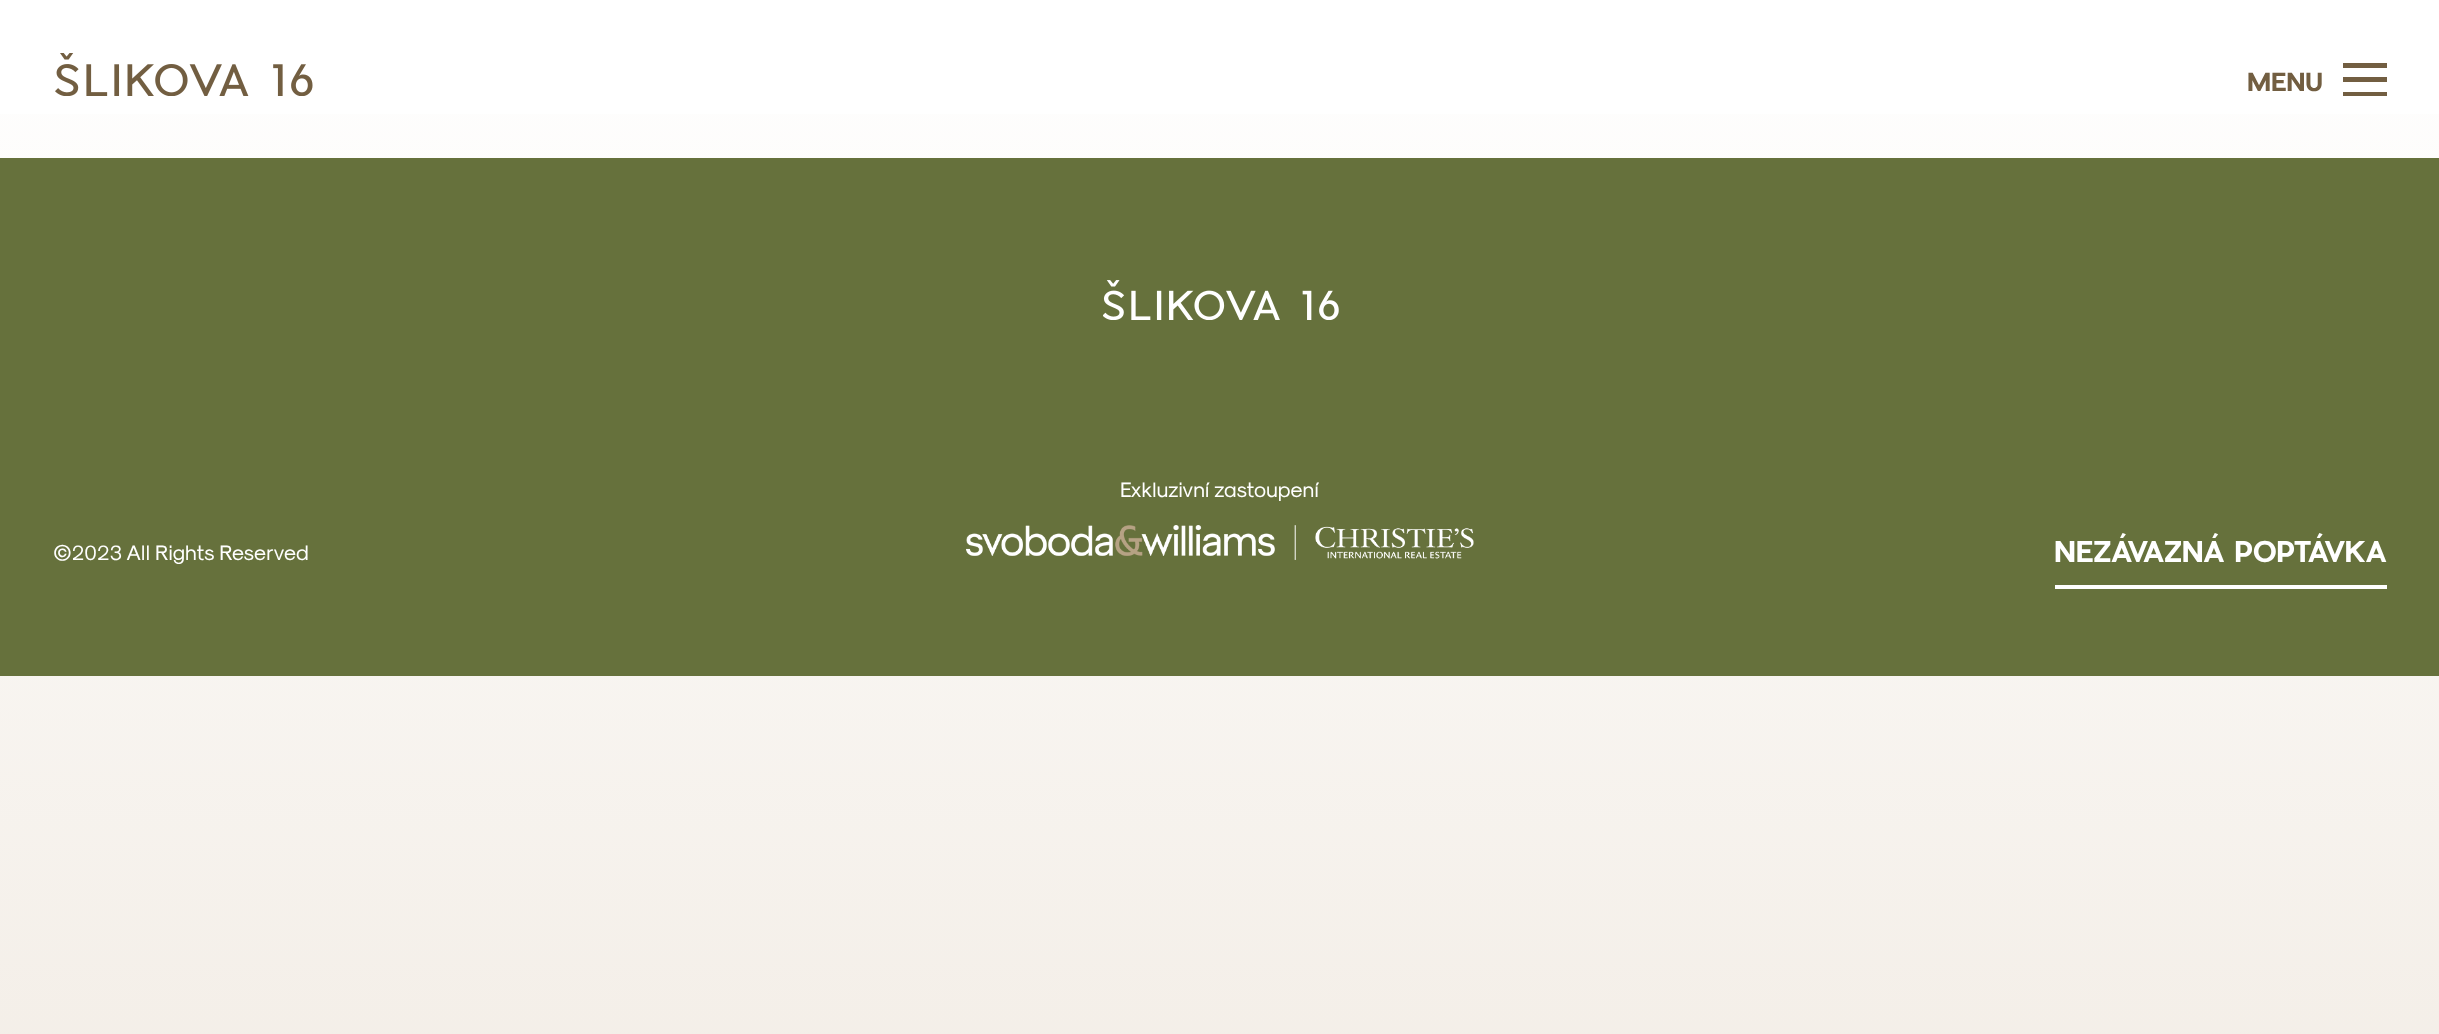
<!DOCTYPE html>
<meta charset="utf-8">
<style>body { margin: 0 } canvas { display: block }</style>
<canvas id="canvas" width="2439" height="1034"></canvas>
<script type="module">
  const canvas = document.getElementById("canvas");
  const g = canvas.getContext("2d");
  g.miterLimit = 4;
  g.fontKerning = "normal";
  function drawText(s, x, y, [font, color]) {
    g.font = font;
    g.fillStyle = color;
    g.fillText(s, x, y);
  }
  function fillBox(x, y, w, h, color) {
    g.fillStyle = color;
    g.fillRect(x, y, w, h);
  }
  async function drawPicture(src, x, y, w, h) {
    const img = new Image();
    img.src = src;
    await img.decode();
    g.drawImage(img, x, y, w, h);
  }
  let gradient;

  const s1 = ["bold 24.5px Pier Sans", "#725E41"];
  const s2 = ["21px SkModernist", "#FFFFFF"];
  const s3 = ["bold 28px Pier Sans", "#FFFFFF"];

  fillBox(0, 0, 2439, 1034, "#FFFFFF");
  gradient = g.createLinearGradient(1220, 0, 1220, 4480);
  gradient.addColorStop(0, "#FFFFFF");
  gradient.addColorStop(0.5, "#E7DCCE");
  gradient.addColorStop(1, "#FFFFFF");
  g.fillStyle = gradient;
  g.fillRect(0, 114, 2439, 920);
  await drawPicture("pic1.png", 55, 53, 258, 43);
  fillBox(2343, 63, 44, 5, "#725E41");
  drawText("MENU", 2247, 91, s1);
  fillBox(2343, 77, 44, 5, "#725E41");
  fillBox(2343, 92, 44, 4, "#725E41");
  fillBox(0, 158, 2439, 518, "#66713C");
  await drawPicture("pic2.png", 1103, 280, 236, 40);
  drawText("Exkluzivní zastoupení", 1120, 497, s2);
  await drawPicture("pic3.png", 966, 525, 508, 35);
  drawText("©2023 All Rights Reserved", 53, 560, s2);
  drawText("NEZÁVAZNÁ POPTÁVKA", 2054, 562, s3);
  fillBox(2055, 585, 332, 4, "#FFFFFF");
</script>
